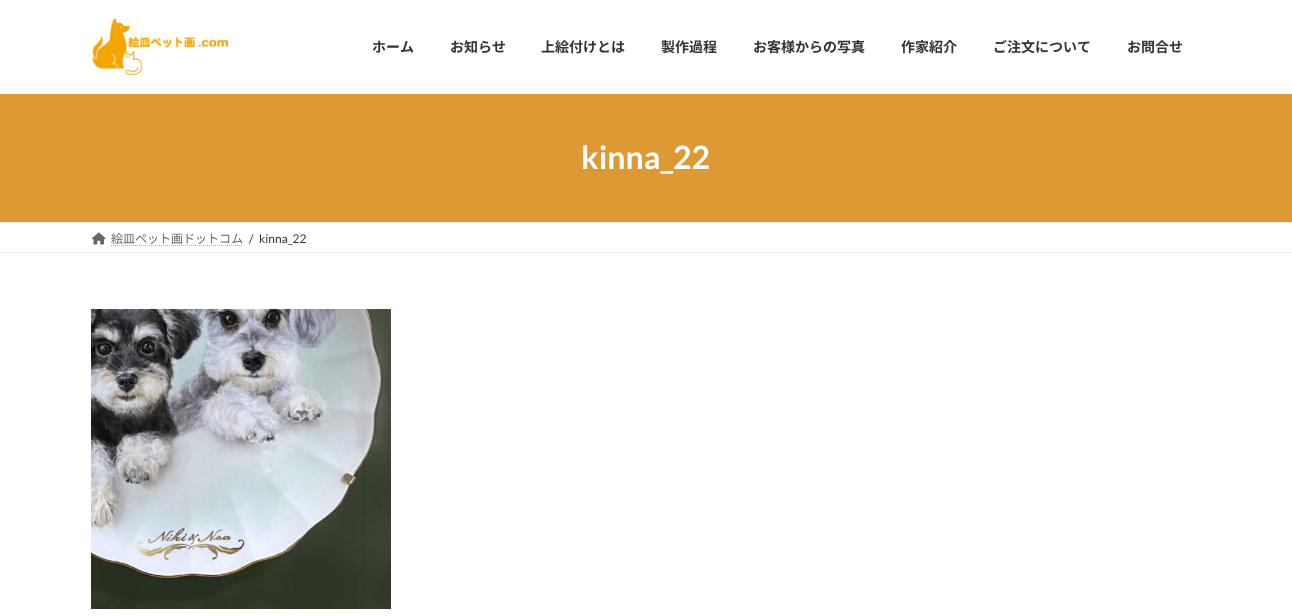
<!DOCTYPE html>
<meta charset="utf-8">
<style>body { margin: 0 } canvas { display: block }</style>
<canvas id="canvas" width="1292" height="616"></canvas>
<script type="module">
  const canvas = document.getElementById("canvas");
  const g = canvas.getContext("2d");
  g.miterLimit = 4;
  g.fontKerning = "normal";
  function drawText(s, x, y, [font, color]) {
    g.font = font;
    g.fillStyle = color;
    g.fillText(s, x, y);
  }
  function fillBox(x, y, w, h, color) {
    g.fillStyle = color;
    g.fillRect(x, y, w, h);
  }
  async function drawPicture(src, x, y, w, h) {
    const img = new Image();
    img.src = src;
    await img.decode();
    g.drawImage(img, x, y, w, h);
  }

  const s1 = ["bold 14px Noto Sans JP", "#333333"];
  const s2 = ["bold 32px Lato", "#FFFFFF"];
  const s3 = ["12px Noto Sans JP", "#666666"];
  const s4 = ["12px Lato", "#333333"];

  fillBox(0, 0, 1292, 616, "#FFFFFF");
  await drawPicture("pic1.png", 92, 18, 136, 58);
  drawText("ホーム", 372, 52, s1);
  drawText("お知らせ", 450, 52, s1);
  drawText("上絵付けとは", 541, 52, s1);
  drawText("製作過程", 661, 52, s1);
  drawText("お客様からの写真", 753, 52, s1);
  drawText("作家紹介", 901, 52, s1);
  drawText("ご注文について", 993, 52, s1);
  drawText("お問合せ", 1127, 52, s1);
  fillBox(0, 94, 1292, 128, "#DD9933");
  drawText("kinna_22", 581, 169, s2);
  fillBox(0, 222, 1292, 1, "#F0F0F0");
  fillBox(0, 252, 1292, 1, "#F0F0F0");
  await drawPicture("pic2.png", 92, 232, 14, 13);
  drawText("絵皿ペット画ドットコム", 111, 243, s3);
  g.beginPath();
  g.moveTo(111, 245.5);
  g.lineTo(243, 245.5);
  g.strokeStyle = "#B3B3B3";
  g.setLineDash([1, 1]);
  g.stroke();
  drawText("/", 249, 243, s4);
  drawText("kinna_22", 259, 243, s4);
  await drawPicture("pic3.png", 91, 309, 300, 300);
</script>
